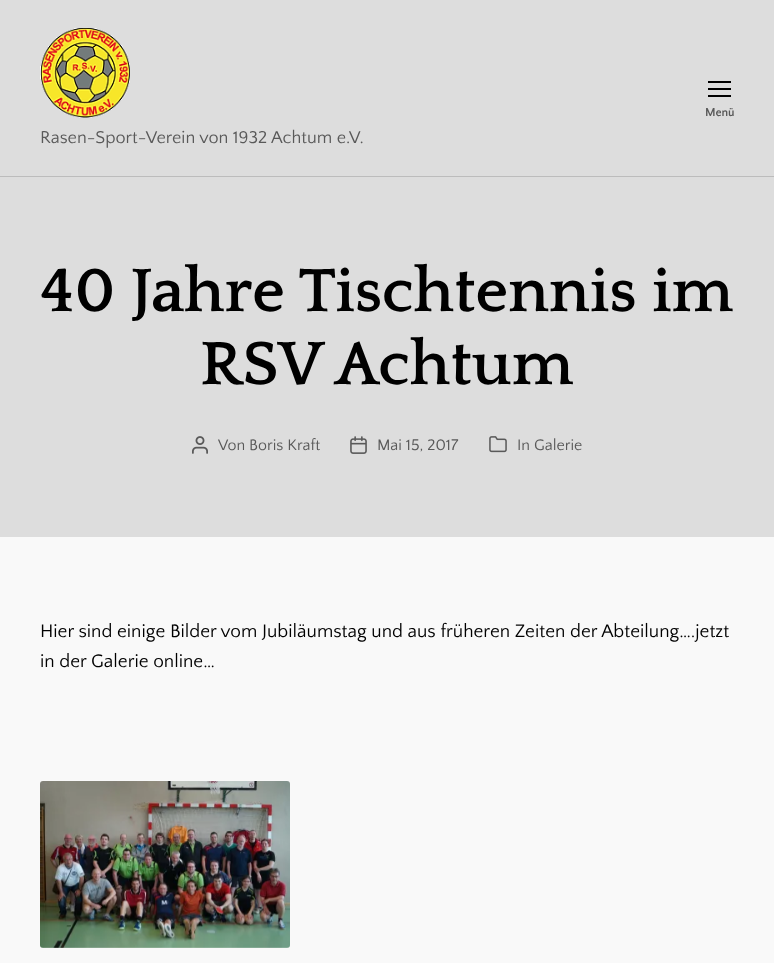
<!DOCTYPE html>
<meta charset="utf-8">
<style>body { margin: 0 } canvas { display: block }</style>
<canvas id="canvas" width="774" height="963"></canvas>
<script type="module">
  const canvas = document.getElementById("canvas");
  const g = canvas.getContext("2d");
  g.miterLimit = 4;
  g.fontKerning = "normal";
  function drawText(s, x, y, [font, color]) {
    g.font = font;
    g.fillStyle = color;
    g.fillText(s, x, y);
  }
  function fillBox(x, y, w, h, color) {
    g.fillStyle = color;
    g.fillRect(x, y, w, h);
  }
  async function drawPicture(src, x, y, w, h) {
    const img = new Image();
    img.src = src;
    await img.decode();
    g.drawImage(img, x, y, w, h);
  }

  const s1 = ["bold 12px Quattrocento Sans", "#595959"];
  const s2 = ["18px Quattrocento Sans", "#595959"];
  const s3 = ["bold 64px Quattrocento", "#000000"];
  const s4 = ["16px Quattrocento Sans", "#595959"];
  const s5 = ["19px Quattrocento Sans", "#000000"];

  fillBox(0, 0, 774, 963, "#F9F9F9");
  fillBox(0, 0, 774, 176, "#DDDDDD");
  fillBox(0, 176, 774, 1, "#BCBCBC");
  fillBox(708, 81, 23, 2, "#000000");
  fillBox(708, 95, 23, 2, "#000000");
  fillBox(708, 88, 23, 2, "#000000");
  drawText("Menü", 705, 116, s1);
  await drawPicture("pic1.png", 40, 28, 90, 90);
  drawText("Rasen-Sport-Verein von 1932 Achtum e.V.", 40, 143, s2);
  fillBox(0, 177, 774, 360, "#DDDDDD");
  drawText("40 Jahre Tischtennis im", 40, 311, s3);
  drawText("RSV Achtum", 200, 384, s3);
  await drawPicture("pic2.png", 192, 436, 16, 18);
  drawText("Von Boris Kraft", 218, 450, s4);
  await drawPicture("pic3.png", 350, 436, 17, 18);
  drawText("Mai 15, 2017", 377, 450, s4);
  await drawPicture("pic4.png", 489, 436, 18, 17);
  drawText("In Galerie", 517, 450, s4);
  drawText("Hier sind einige Bilder vom Jubiläumstag und aus früheren Zeiten der Abteilung….jetzt", 40, 637, s5);
  drawText("in der Galerie online…", 40, 667, s5);
  await drawPicture("pic5.png", 40, 781, 250, 167);
</script>
